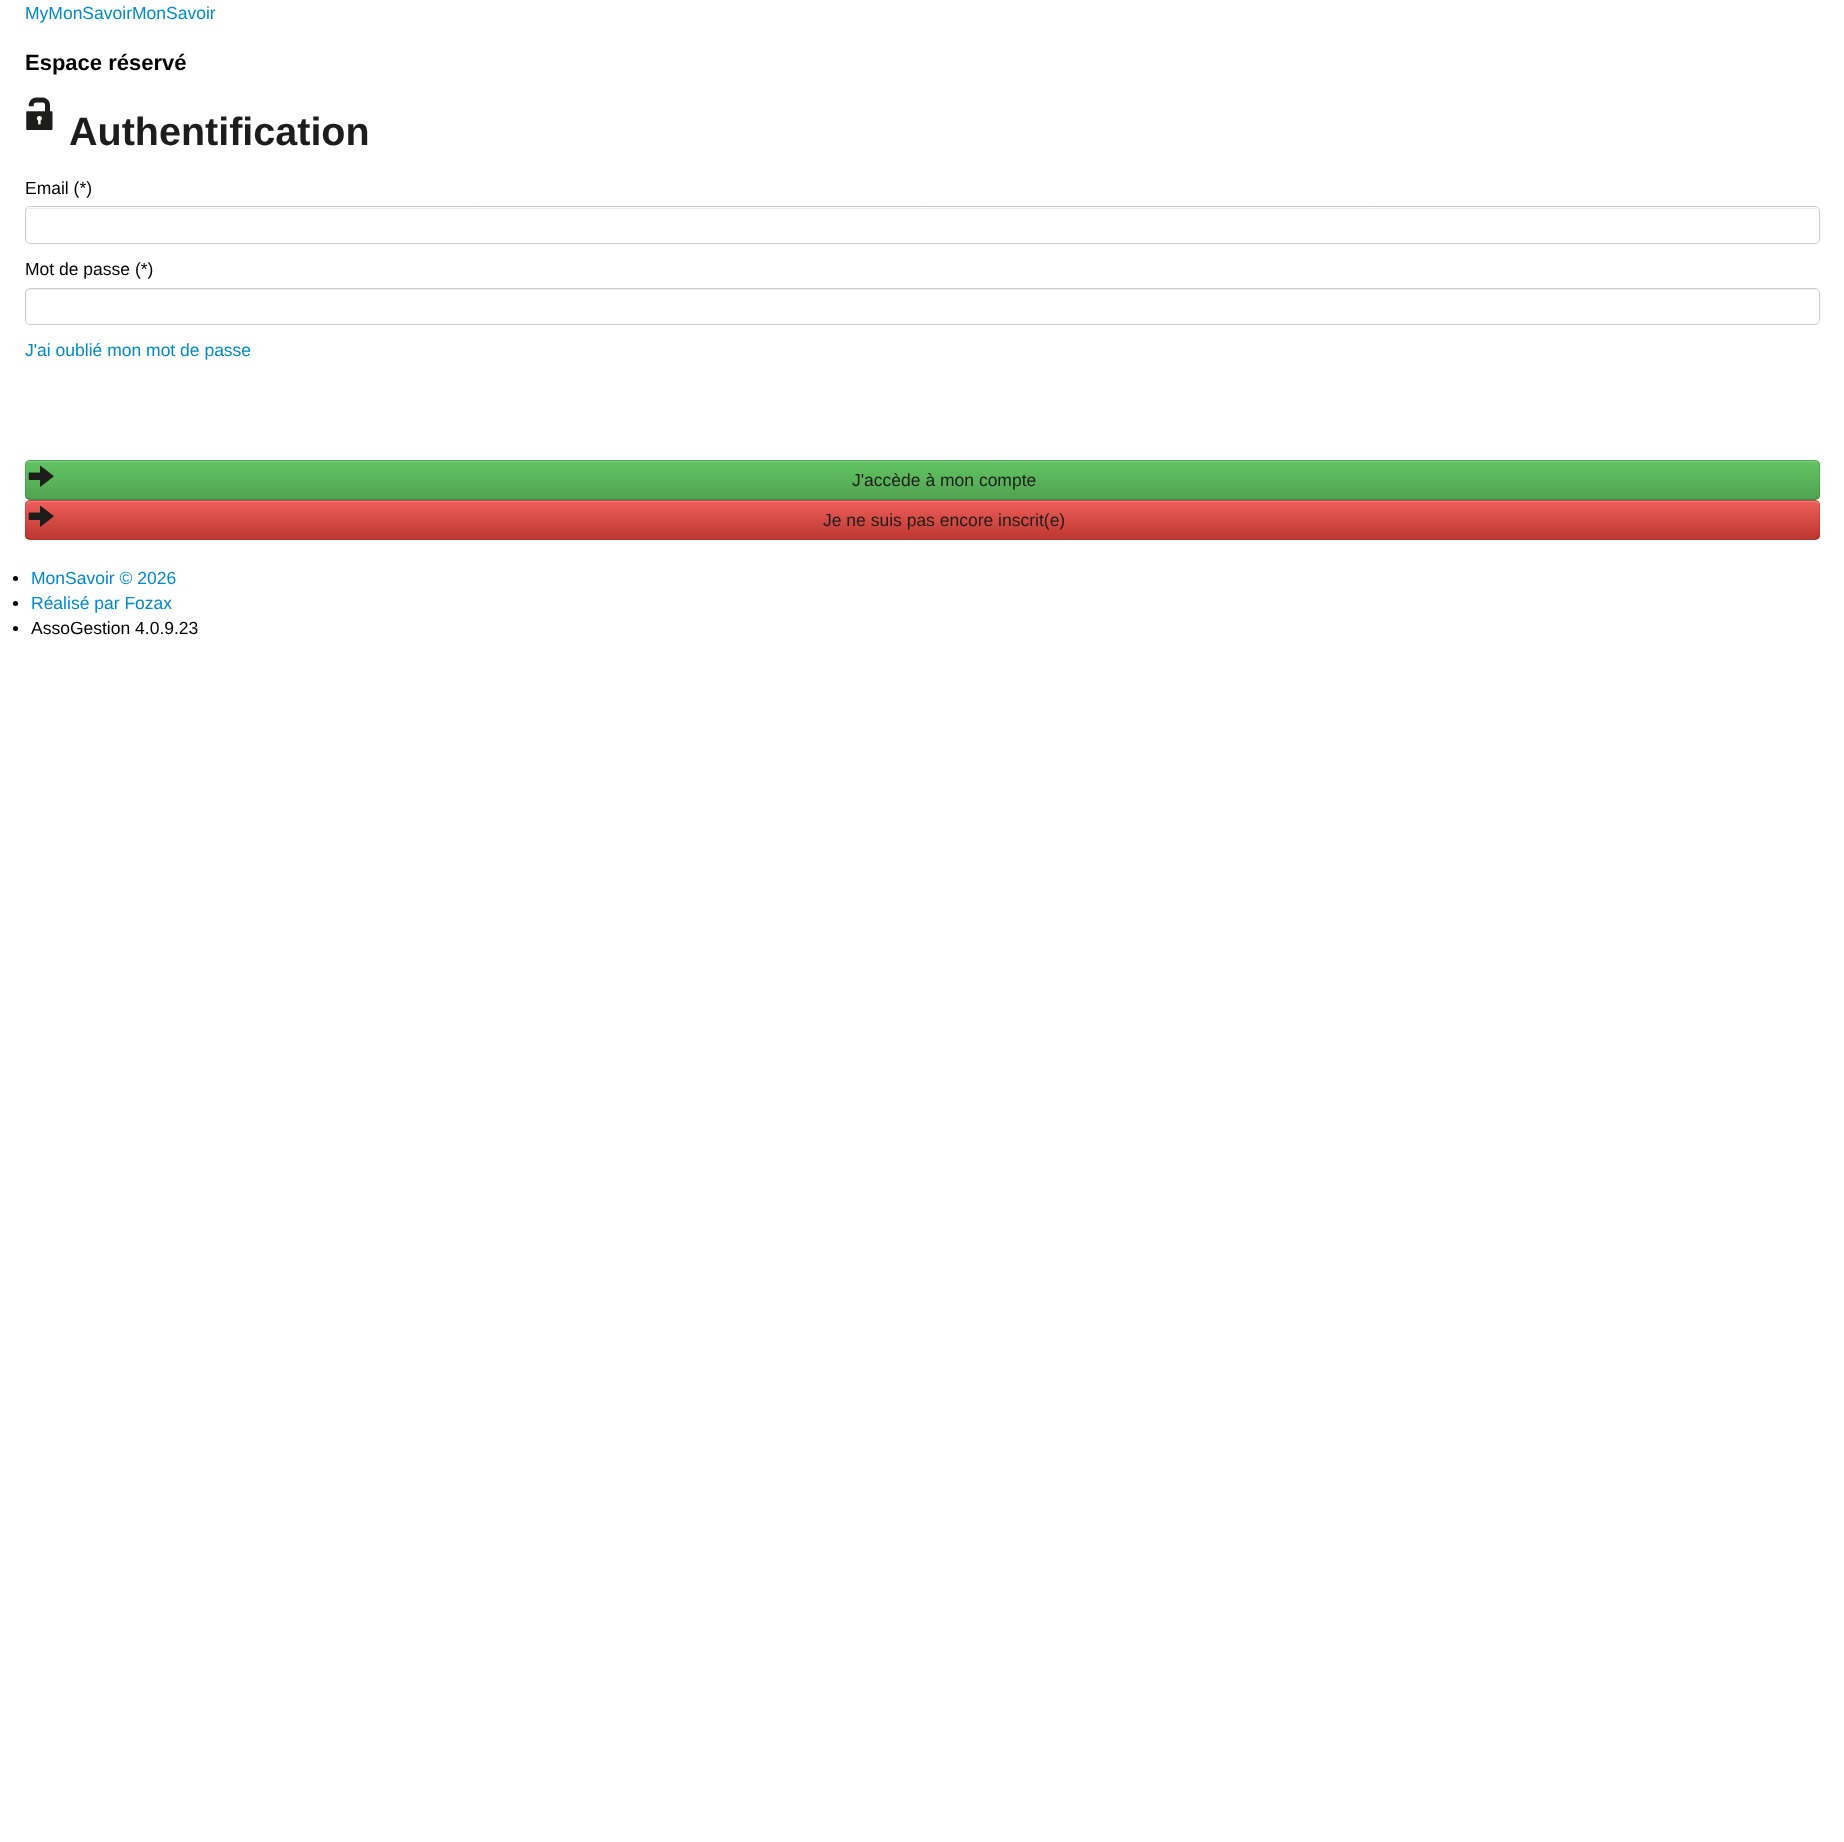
<!DOCTYPE html>
<meta charset="utf-8">
<style>body { margin: 0 } canvas { display: block }</style>
<canvas id="canvas" width="1844" height="1842"></canvas>
<script type="module">
  const canvas = document.getElementById("canvas");
  const g = canvas.getContext("2d");
  g.miterLimit = 4;
  g.fontKerning = "normal";
  function drawText(s, x, y, [font, color]) {
    g.font = font;
    g.fillStyle = color;
    g.fillText(s, x, y);
  }
  function fillBox(x, y, w, h, color) {
    g.fillStyle = color;
    g.fillRect(x, y, w, h);
  }
  function fillRounded(x, y, w, h, r, color) {
    g.fillStyle = color;
    g.beginPath();
    g.roundRect(x, y, w, h, r);
    g.fill();
  }
  async function drawPicture(src, x, y, w, h) {
    const img = new Image();
    img.src = src;
    await img.decode();
    g.drawImage(img, x, y, w, h);
  }
  let gradient;

  const s1 = ["17.5px Liberation Sans", "#0088CC"];
  const s2 = ["bold 22px Liberation Sans", "#000000"];
  const s3 = ["bold 39.5px Liberation Sans", "#1D1D1B"];
  const s4 = ["17.5px Liberation Sans", "#000000"];
  const s5 = ["17.5px Liberation Sans", "#1D1D1B"];

  fillBox(0, 0, 1844, 1842, "#FFFFFF");
  drawText("MyMonSavoirMonSavoir", 25, 19, s1);
  drawText("Espace réservé", 25, 70, s2);
  await drawPicture("pic1.png", 26, 97, 27, 33);
  drawText("Authentification", 69, 145, s3);
  drawText("Email (*)", 25, 194, s4);
  g.fillStyle = "#ECECEC";
  g.beginPath();
  g.moveTo(30, 209);
  g.lineTo(1815, 209);
  g.bezierCurveTo(1817, 209, 1819, 210, 1819, 212);
  g.bezierCurveTo(1819, 210, 1817, 208, 1815, 208);
  g.lineTo(30, 208);
  g.bezierCurveTo(28, 208, 26, 210, 26, 212);
  g.bezierCurveTo(26, 210, 28, 209, 30, 209);
  g.closePath();
  g.fill();
  g.beginPath();
  g.roundRect(25.5, 206.5, 1794, 37, 4.5);
  g.strokeStyle = "#CCCCCC";
  g.stroke();
  drawText("Mot de passe (*)", 25, 275, s4);
  g.fillStyle = "#ECECEC";
  g.beginPath();
  g.moveTo(30, 290);
  g.lineTo(1815, 290);
  g.bezierCurveTo(1817, 290, 1819, 292, 1819, 294);
  g.lineTo(1819, 293);
  g.bezierCurveTo(1819, 291, 1817, 289, 1815, 289);
  g.lineTo(30, 289);
  g.bezierCurveTo(28, 289, 26, 291, 26, 293);
  g.lineTo(26, 294);
  g.bezierCurveTo(26, 292, 28, 290, 30, 290);
  g.closePath();
  g.fill();
  g.beginPath();
  g.roundRect(25.5, 288.5, 1794, 36, 4.5);
  g.stroke();
  drawText("J'ai oublié mon mot de passe", 25, 356, s1);
  g.fillStyle = "rgba(0, 0, 0, 0.05)";
  g.filter = "blur(1px)";
  g.beginPath();
  g.roundRect(25, 461, 1795, 40, 5);
  g.fill();
  g.filter = "none";
  fillRounded(25, 460, 1795, 40, 5, "#5BB75B");
  g.save();
  g.beginPath();
  g.roundRect(25, 460, 1795, 40, 5);
  g.clip();
  gradient = g.createLinearGradient(923, 461, 923, 499);
  gradient.addColorStop(0, "#62C462");
  gradient.addColorStop(1, "#51A351");
  g.fillStyle = gradient;
  g.fillRect(25, 461, 1795, 38);
  g.restore();
  g.fillStyle = "#81D081";
  g.beginPath();
  g.moveTo(30, 462);
  g.lineTo(1815, 462);
  g.bezierCurveTo(1817, 462, 1819, 464, 1819, 466);
  g.lineTo(1819, 465);
  g.bezierCurveTo(1819, 463, 1817, 461, 1815, 461);
  g.lineTo(30, 461);
  g.bezierCurveTo(28, 461, 26, 463, 26, 465);
  g.lineTo(26, 466);
  g.bezierCurveTo(26, 464, 28, 462, 30, 462);
  g.closePath();
  g.fill();
  g.beginPath();
  g.moveTo(1818, 498);
  g.lineTo(1815, 499.5);
  g.lineTo(30, 499.5);
  g.lineTo(27, 498);
  g.strokeStyle = "rgba(0, 0, 0, 0.25)";
  g.lineWidth = 1.2;
  g.stroke();
  g.beginPath();
  g.moveTo(27, 498);
  g.bezierCurveTo(26, 497.5, 25.5, 496, 25.5, 495);
  g.lineTo(25.5, 465);
  g.bezierCurveTo(25.5, 464, 26, 462.5, 27, 462);
  g.bezierCurveTo(27.5, 461, 29, 460.5, 30, 460.5);
  g.lineTo(1815, 460.5);
  g.bezierCurveTo(1816, 460.5, 1817.5, 461, 1818, 462);
  g.bezierCurveTo(1819, 462.5, 1819.5, 464, 1819.5, 465);
  g.lineTo(1819.5, 495);
  g.bezierCurveTo(1819.5, 496, 1819, 497.5, 1818, 498);
  g.strokeStyle = "rgba(0, 0, 0, 0.1)";
  g.stroke();
  await drawPicture("pic2.png", 28, 465, 26, 22);
  drawText("J'accède à mon compte", 852, 486, s5);
  g.fillStyle = "rgba(0, 0, 0, 0.05)";
  g.filter = "blur(1px)";
  g.beginPath();
  g.roundRect(25, 501, 1795, 40, 5);
  g.fill();
  g.filter = "none";
  fillRounded(25, 500, 1795, 40, 5, "#DA4F49");
  g.save();
  g.beginPath();
  g.roundRect(25, 500, 1795, 40, 5);
  g.clip();
  gradient = g.createLinearGradient(923, 501, 923, 539);
  gradient.addColorStop(0, "#EE5F5B");
  gradient.addColorStop(1, "#BD362F");
  g.fillStyle = gradient;
  g.fillRect(25, 501, 1795, 38);
  g.restore();
  g.fillStyle = "#F17E7B";
  g.beginPath();
  g.moveTo(30, 502);
  g.lineTo(1815, 502);
  g.bezierCurveTo(1817, 502, 1819, 504, 1819, 506);
  g.lineTo(1819, 505);
  g.bezierCurveTo(1819, 503, 1817, 501, 1815, 501);
  g.lineTo(30, 501);
  g.bezierCurveTo(28, 501, 26, 503, 26, 505);
  g.lineTo(26, 506);
  g.bezierCurveTo(26, 504, 28, 502, 30, 502);
  g.closePath();
  g.fill();
  g.beginPath();
  g.moveTo(1818, 538);
  g.lineTo(1815, 539.5);
  g.lineTo(30, 539.5);
  g.lineTo(27, 538);
  g.strokeStyle = "rgba(0, 0, 0, 0.25)";
  g.stroke();
  g.beginPath();
  g.moveTo(27, 538);
  g.bezierCurveTo(26, 537.5, 25.5, 536, 25.5, 535);
  g.lineTo(25.5, 505);
  g.bezierCurveTo(25.5, 504, 26, 502.5, 27, 502);
  g.bezierCurveTo(27.5, 501, 29, 500.5, 30, 500.5);
  g.lineTo(1815, 500.5);
  g.bezierCurveTo(1816, 500.5, 1817.5, 501, 1818, 502);
  g.bezierCurveTo(1819, 502.5, 1819.5, 504, 1819.5, 505);
  g.lineTo(1819.5, 535);
  g.bezierCurveTo(1819.5, 536, 1819, 537.5, 1818, 538);
  g.strokeStyle = "rgba(0, 0, 0, 0.1)";
  g.stroke();
  await drawPicture("pic3.png", 28, 505, 26, 22);
  drawText("Je ne suis pas encore inscrit(e)", 823, 526, s5);
  g.fillStyle = "#000000";
  g.beginPath();
  g.arc(15.5, 578.5, 2.5, 0, Math.PI * 2);
  g.fill();
  drawText("MonSavoir © 2026", 31, 584, s1);
  g.fillStyle = "#000000";
  g.beginPath();
  g.arc(15.5, 603.5, 2.5, 0, Math.PI * 2);
  g.fill();
  drawText("Réalisé par Fozax", 31, 609, s1);
  g.fillStyle = "#000000";
  g.beginPath();
  g.arc(15.5, 628.5, 2.5, 0, Math.PI * 2);
  g.fill();
  drawText("AssoGestion 4.0.9.23", 31, 634, s4);
</script>
